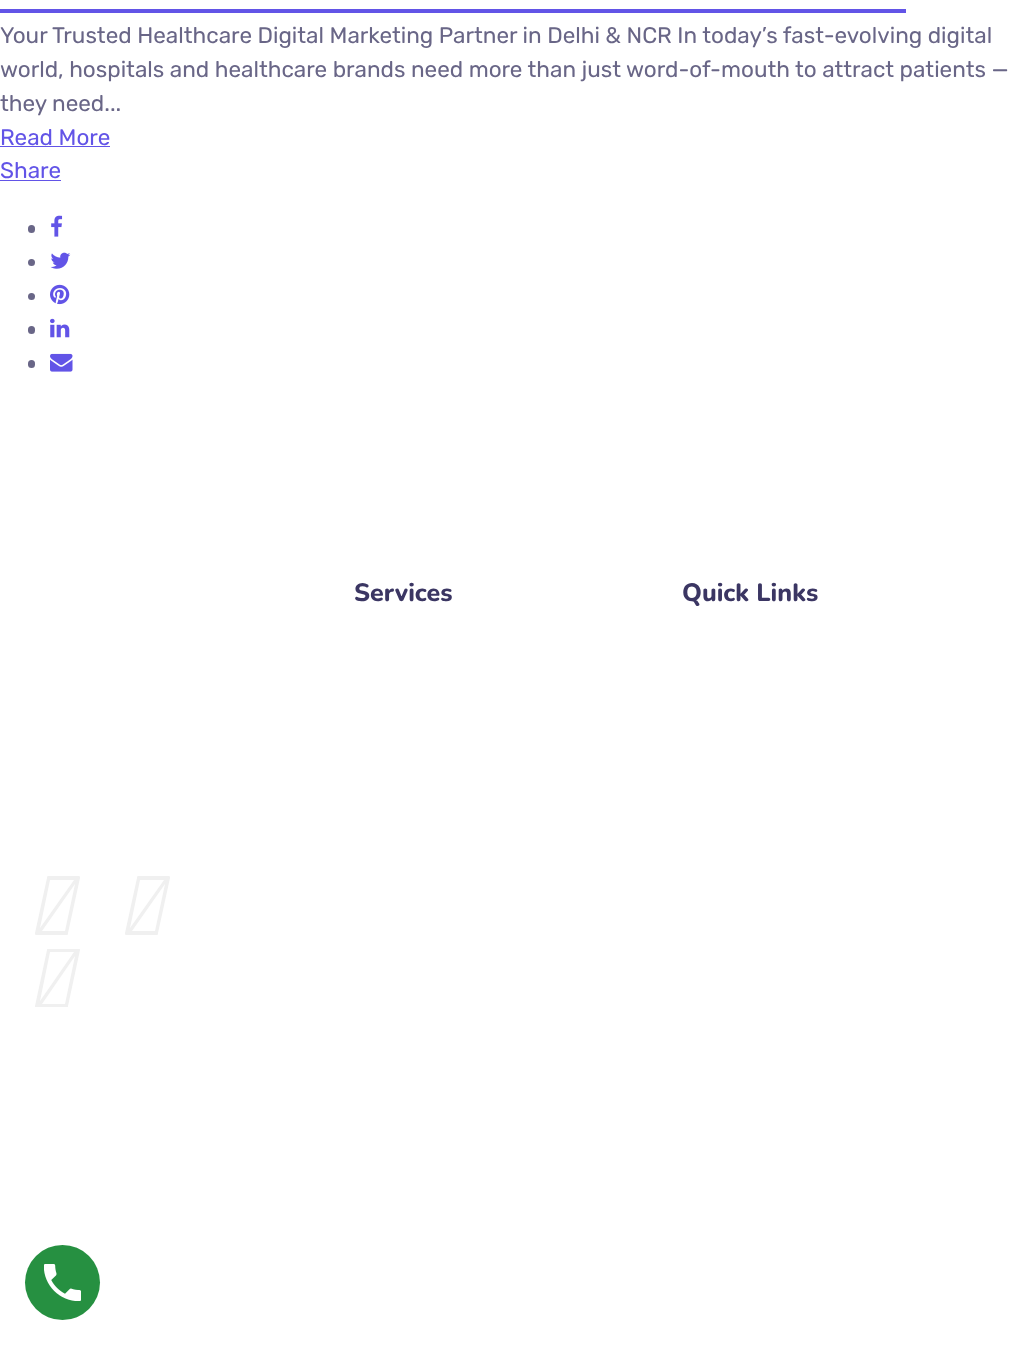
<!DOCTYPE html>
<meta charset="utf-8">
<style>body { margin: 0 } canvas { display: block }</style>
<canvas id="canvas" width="1011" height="1345"></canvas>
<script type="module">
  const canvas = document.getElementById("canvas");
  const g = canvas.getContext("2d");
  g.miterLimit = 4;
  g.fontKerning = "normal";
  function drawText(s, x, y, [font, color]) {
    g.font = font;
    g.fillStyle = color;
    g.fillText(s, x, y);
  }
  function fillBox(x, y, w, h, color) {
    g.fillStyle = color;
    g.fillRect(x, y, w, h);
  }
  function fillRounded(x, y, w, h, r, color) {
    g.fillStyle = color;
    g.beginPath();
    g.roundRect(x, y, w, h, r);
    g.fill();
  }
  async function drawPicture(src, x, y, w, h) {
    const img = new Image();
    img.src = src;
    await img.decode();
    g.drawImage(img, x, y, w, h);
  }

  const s1 = ["22.5px Rubik", "#696687"];
  const s2 = ["22.5px Rubik", "#6254E7"];
  const s3 = ["800 25px Nunito", "#3B3663"];

  fillBox(0, 0, 1011, 1345, "#FFFFFF");
  fillBox(0, 9, 906, 4, "#6254E7");
  drawText("Your Trusted Healthcare Digital Marketing Partner in Delhi & NCR In today’s fast-evolving digital", 0, 43, s1);
  drawText("world, hospitals and healthcare brands need more than just word-of-mouth to attract patients —", 0, 77, s1);
  drawText("they need...", 0, 111, s1);
  drawText("Read More", 0, 145, s2);
  fillBox(0, 146, 110, 1, "#6254E7");
  drawText("Share", 0, 178, s2);
  fillBox(0, 180, 61, 1, "#6254E7");
  fillRounded(28, 225, 7, 8, 3.5, "#696687");
  await drawPicture("pic1.png", 51, 215, 12, 22);
  g.beginPath();
  g.arc(31.5, 262.5, 3.5, 0, Math.PI * 2);
  g.fill();
  await drawPicture("pic2.png", 50, 252, 21, 17);
  g.beginPath();
  g.arc(31.5, 296.5, 3.5, 0, Math.PI * 2);
  g.fill();
  await drawPicture("pic3.png", 50, 284, 20, 21);
  fillRounded(28, 326, 7, 8, 3.5, "#696687");
  await drawPicture("pic4.png", 50, 318, 20, 20);
  fillRounded(28, 360, 7, 8, 3.5, "#696687");
  await drawPicture("pic5.png", 50, 353, 23, 19);
  drawText("Services", 354, 601, s3);
  drawText("Quick Links", 682, 601, s3);
  g.fillStyle = "#F0F0F0";
  g.beginPath();
  g.moveTo(36, 935);
  g.bezierCurveTo(35, 935, 35, 934, 35, 933);
  g.lineTo(47, 878);
  g.bezierCurveTo(47, 877, 47, 876, 48, 876);
  g.lineTo(79, 876);
  g.bezierCurveTo(80, 876, 80, 877, 80, 878);
  g.lineTo(68, 933);
  g.bezierCurveTo(68, 934, 68, 935, 67, 935);
  g.closePath();
  g.moveTo(42, 931);
  g.lineTo(65, 931);
  g.lineTo(75, 884);
  g.closePath();
  g.moveTo(40, 928);
  g.lineTo(74, 880);
  g.lineTo(50, 880);
  g.closePath();
  g.fill();
  g.beginPath();
  g.moveTo(126, 935);
  g.bezierCurveTo(125, 935, 125, 934, 125, 933);
  g.lineTo(137, 878);
  g.bezierCurveTo(137, 877, 137, 876, 138, 876);
  g.lineTo(169, 876);
  g.bezierCurveTo(170, 876, 170, 877, 170, 878);
  g.lineTo(158, 933);
  g.bezierCurveTo(158, 934, 158, 935, 157, 935);
  g.closePath();
  g.moveTo(132, 931);
  g.lineTo(155, 931);
  g.lineTo(165, 884);
  g.closePath();
  g.moveTo(130, 928);
  g.lineTo(164, 880);
  g.lineTo(140, 880);
  g.closePath();
  g.fill();
  g.beginPath();
  g.moveTo(36, 1007);
  g.bezierCurveTo(35, 1007, 35, 1007, 35, 1006);
  g.lineTo(47, 950);
  g.bezierCurveTo(47, 949, 47, 949, 48, 949);
  g.lineTo(79, 949);
  g.bezierCurveTo(80, 949, 80, 949, 80, 950);
  g.lineTo(68, 1006);
  g.bezierCurveTo(68, 1007, 68, 1007, 67, 1007);
  g.closePath();
  g.moveTo(42, 1004);
  g.lineTo(65, 1004);
  g.lineTo(75, 956);
  g.closePath();
  g.moveTo(40, 1001);
  g.lineTo(74, 952);
  g.lineTo(50, 952);
  g.closePath();
  g.fill();
  g.fillStyle = "#269041";
  g.beginPath();
  g.arc(62.5, 1282.5, 37.5, 0, Math.PI * 2);
  g.fill();
  await drawPicture("pic6.png", 44, 1264, 37, 37);
</script>
